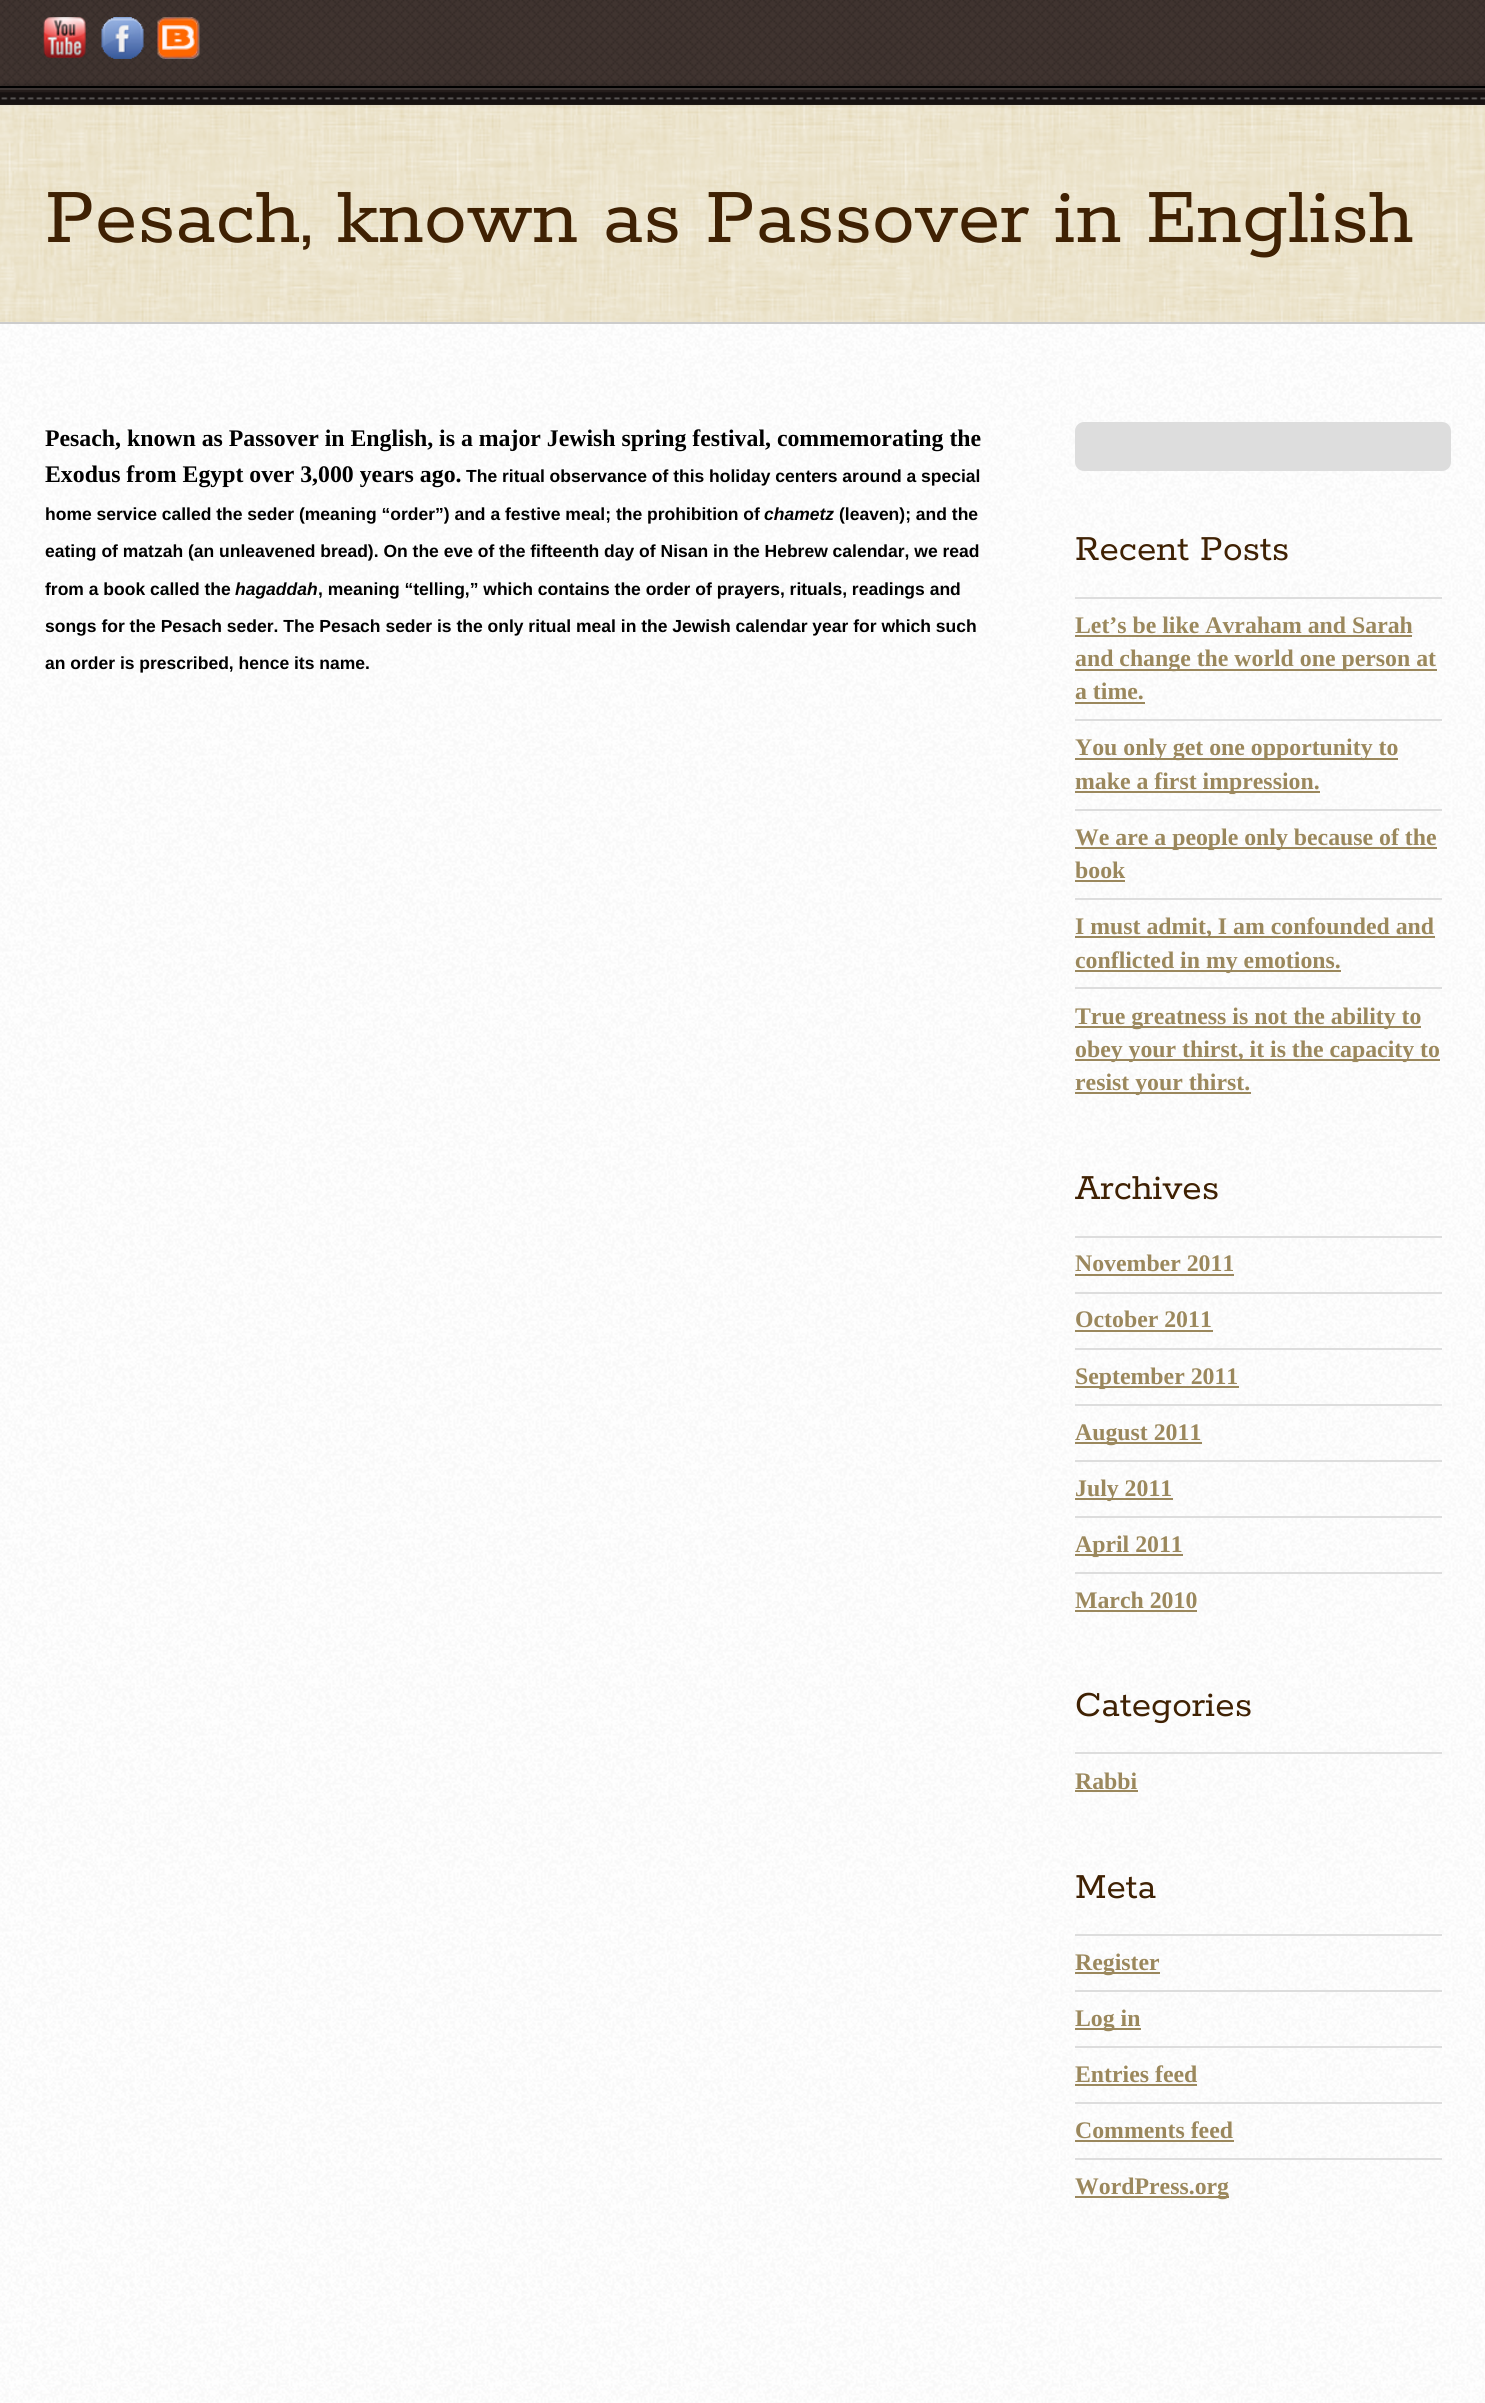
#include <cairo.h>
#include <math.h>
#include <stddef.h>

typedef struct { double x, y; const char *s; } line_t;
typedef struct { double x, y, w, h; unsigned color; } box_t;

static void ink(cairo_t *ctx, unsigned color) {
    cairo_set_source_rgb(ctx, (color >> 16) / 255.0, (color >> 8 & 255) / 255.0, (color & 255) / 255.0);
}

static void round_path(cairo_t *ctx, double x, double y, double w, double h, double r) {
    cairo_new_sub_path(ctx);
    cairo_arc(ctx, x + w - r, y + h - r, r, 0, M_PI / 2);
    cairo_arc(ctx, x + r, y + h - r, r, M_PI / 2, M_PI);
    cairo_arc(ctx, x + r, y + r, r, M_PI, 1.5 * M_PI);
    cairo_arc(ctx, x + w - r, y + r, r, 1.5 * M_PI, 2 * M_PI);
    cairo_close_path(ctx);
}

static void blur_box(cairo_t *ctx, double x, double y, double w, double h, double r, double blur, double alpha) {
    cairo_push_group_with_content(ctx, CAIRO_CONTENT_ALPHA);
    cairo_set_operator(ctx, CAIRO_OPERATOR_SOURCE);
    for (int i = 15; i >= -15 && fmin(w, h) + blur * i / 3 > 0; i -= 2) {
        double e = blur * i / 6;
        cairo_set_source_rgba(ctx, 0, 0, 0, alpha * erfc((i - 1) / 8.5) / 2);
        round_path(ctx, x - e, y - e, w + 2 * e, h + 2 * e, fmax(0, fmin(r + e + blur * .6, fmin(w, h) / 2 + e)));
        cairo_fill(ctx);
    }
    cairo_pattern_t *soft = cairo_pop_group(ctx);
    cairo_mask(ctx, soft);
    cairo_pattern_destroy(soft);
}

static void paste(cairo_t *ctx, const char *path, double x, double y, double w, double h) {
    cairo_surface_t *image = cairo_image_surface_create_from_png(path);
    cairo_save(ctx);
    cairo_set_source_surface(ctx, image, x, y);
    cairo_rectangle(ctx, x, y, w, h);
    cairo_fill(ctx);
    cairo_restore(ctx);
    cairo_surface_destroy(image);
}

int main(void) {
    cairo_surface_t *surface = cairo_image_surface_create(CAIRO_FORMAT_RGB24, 1485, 2403);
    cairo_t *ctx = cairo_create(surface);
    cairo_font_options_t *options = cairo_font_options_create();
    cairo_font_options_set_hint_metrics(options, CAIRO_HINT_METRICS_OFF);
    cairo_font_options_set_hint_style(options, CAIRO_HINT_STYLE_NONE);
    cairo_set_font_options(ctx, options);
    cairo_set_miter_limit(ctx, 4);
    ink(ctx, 0x403430);
    cairo_paint(ctx);
    paste(ctx, "media/1.png", 0, 0, 1485, 86);
    paste(ctx, "media/2.png", 43, 17, 43, 41);
    paste(ctx, "media/3.png", 101, 17, 43, 42);
    paste(ctx, "media/4.png", 157, 17, 43, 42);
    ink(ctx, 0xDED0A8);
    cairo_rectangle(ctx, 0, 105, 1485, 217);
    cairo_fill(ctx);
    paste(ctx, "media/7.png", 0, 105, 1485, 217);
    ink(ctx, 0x000000);
    blur_box(ctx, 0, 84, 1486, 19, 0, 2.5, 0.2);
    ink(ctx, 0x261E1C);
    cairo_rectangle(ctx, 0, 90, 1485, 15);
    cairo_fill(ctx);
    paste(ctx, "media/5.png", 0, 92, 1485, 13);
    {
        static const box_t items[] = {
            {0, 88, 1485, 2, 0x3C3533},
            {0, 86, 1485, 2, 0x000000},
            {0, 324, 1485, 2079, 0xFFFFFF},
        };
        for (size_t i = 0; i < sizeof items / sizeof *items; i++) {
            ink(ctx, items[i].color);
            cairo_rectangle(ctx, items[i].x, items[i].y, items[i].w, items[i].h);
            cairo_fill(ctx);
        }
    }
    paste(ctx, "media/6.png", 0, 324, 1485, 2079);
    ink(ctx, 0xCCCCCC);
    cairo_rectangle(ctx, 0, 322, 1485, 2);
    cairo_fill(ctx);
    cairo_select_font_face(ctx, "Rokkitt SemiBold", CAIRO_FONT_SLANT_NORMAL, CAIRO_FONT_WEIGHT_NORMAL);
    cairo_set_font_size(ctx, 85.7);
    ink(ctx, 0x3F2103);
    cairo_move_to(ctx, 45, 242);
    cairo_show_text(ctx, "Pesach, known as Passover in English");
    cairo_select_font_face(ctx, "Liberation Serif", CAIRO_FONT_SLANT_NORMAL, CAIRO_FONT_WEIGHT_BOLD);
    cairo_set_font_size(ctx, 23.8);
    ink(ctx, 0x000000);
    cairo_move_to(ctx, 45, 446);
    cairo_show_text(ctx, "Pesach, known as Passover in English, is a major Jewish spring festival, commemorating the");
    cairo_move_to(ctx, 45, 482);
    cairo_show_text(ctx, "Exodus from Egypt over 3,000 years ago.");
    cairo_select_font_face(ctx, "Liberation Sans", CAIRO_FONT_SLANT_NORMAL, CAIRO_FONT_WEIGHT_BOLD);
    cairo_set_font_size(ctx, 17.5);
    cairo_move_to(ctx, 466, 482);
    cairo_show_text(ctx, "The ritual observance of this holiday centers around a special");
    cairo_move_to(ctx, 45, 520);
    cairo_show_text(ctx, "home service called the seder (meaning “order”) and a festive meal; the prohibition of");
    cairo_select_font_face(ctx, "Liberation Sans", CAIRO_FONT_SLANT_ITALIC, CAIRO_FONT_WEIGHT_BOLD);
    cairo_move_to(ctx, 764, 520);
    cairo_show_text(ctx, "chametz");
    cairo_select_font_face(ctx, "Liberation Sans", CAIRO_FONT_SLANT_NORMAL, CAIRO_FONT_WEIGHT_BOLD);
    {
        static const line_t items[] = {
            {839, 520, "(leaven); and the"},
            {45, 557, "eating of matzah (an unleavened bread). On the eve of the fifteenth day of Nisan in the Hebrew calendar, we read"},
            {45, 595, "from a book called the"},
        };
        for (size_t i = 0; i < sizeof items / sizeof *items; i++) {
            cairo_move_to(ctx, items[i].x, items[i].y);
            cairo_show_text(ctx, items[i].s);
        }
    }
    cairo_select_font_face(ctx, "Liberation Sans", CAIRO_FONT_SLANT_ITALIC, CAIRO_FONT_WEIGHT_BOLD);
    cairo_move_to(ctx, 235, 595);
    cairo_show_text(ctx, "hagaddah");
    cairo_select_font_face(ctx, "Liberation Sans", CAIRO_FONT_SLANT_NORMAL, CAIRO_FONT_WEIGHT_BOLD);
    {
        static const line_t items[] = {
            {318, 595, ", meaning “telling,” which contains the order of prayers, rituals, readings and"},
            {45, 632, "songs for the Pesach seder. The Pesach seder is the only ritual meal in the Jewish calendar year for which such"},
            {45, 669, "an order is prescribed, hence its name."},
        };
        for (size_t i = 0; i < sizeof items / sizeof *items; i++) {
            cairo_move_to(ctx, items[i].x, items[i].y);
            cairo_show_text(ctx, items[i].s);
        }
    }
    ink(ctx, 0xDDDDDD);
    round_path(ctx, 1075, 422, 376, 49, 9);
    cairo_fill(ctx);
    cairo_select_font_face(ctx, "Rokkitt SemiBold", CAIRO_FONT_SLANT_NORMAL, CAIRO_FONT_WEIGHT_NORMAL);
    cairo_set_font_size(ctx, 39.25);
    ink(ctx, 0x3F2103);
    cairo_move_to(ctx, 1075, 560);
    cairo_show_text(ctx, "Recent Posts");
    ink(ctx, 0xDDDDDD);
    cairo_rectangle(ctx, 1075, 597, 367, 2);
    cairo_fill(ctx);
    cairo_select_font_face(ctx, "Liberation Serif", CAIRO_FONT_SLANT_NORMAL, CAIRO_FONT_WEIGHT_BOLD);
    cairo_set_font_size(ctx, 23.8);
    ink(ctx, 0x9B885D);
    cairo_move_to(ctx, 1075, 633);
    cairo_show_text(ctx, "Let’s be like Avraham and Sarah");
    cairo_rectangle(ctx, 1075, 635, 337, 2);
    cairo_fill(ctx);
    cairo_rectangle(ctx, 1075, 669, 362, 2);
    cairo_fill(ctx);
    cairo_move_to(ctx, 1075, 666);
    cairo_show_text(ctx, "and change the world one person at");
    cairo_move_to(ctx, 1075, 699);
    cairo_show_text(ctx, "a time.");
    {
        static const box_t items[] = {
            {1075, 702, 70, 2, 0x9B885D},
            {1075, 719, 367, 2, 0xDDDDDD},
            {1075, 758, 323, 2, 0x9B885D},
        };
        for (size_t i = 0; i < sizeof items / sizeof *items; i++) {
            ink(ctx, items[i].color);
            cairo_rectangle(ctx, items[i].x, items[i].y, items[i].w, items[i].h);
            cairo_fill(ctx);
        }
    }
    cairo_move_to(ctx, 1075, 755);
    cairo_show_text(ctx, "You only get one opportunity to");
    cairo_rectangle(ctx, 1075, 791, 245, 2);
    cairo_fill(ctx);
    cairo_move_to(ctx, 1075, 789);
    cairo_show_text(ctx, "make a first impression.");
    ink(ctx, 0xDDDDDD);
    cairo_rectangle(ctx, 1075, 809, 367, 2);
    cairo_fill(ctx);
    ink(ctx, 0x9B885D);
    cairo_rectangle(ctx, 1075, 847, 362, 2);
    cairo_fill(ctx);
    cairo_move_to(ctx, 1075, 845);
    cairo_show_text(ctx, "We are a people only because of the");
    cairo_move_to(ctx, 1075, 878);
    cairo_show_text(ctx, "book");
    {
        static const box_t items[] = {
            {1075, 880, 50, 2, 0x9B885D},
            {1075, 898, 367, 2, 0xDDDDDD},
            {1075, 936, 360, 2, 0x9B885D},
        };
        for (size_t i = 0; i < sizeof items / sizeof *items; i++) {
            ink(ctx, items[i].color);
            cairo_rectangle(ctx, items[i].x, items[i].y, items[i].w, items[i].h);
            cairo_fill(ctx);
        }
    }
    cairo_move_to(ctx, 1075, 934);
    cairo_show_text(ctx, "I must admit, I am confounded and");
    cairo_rectangle(ctx, 1075, 970, 266, 2);
    cairo_fill(ctx);
    cairo_move_to(ctx, 1075, 968);
    cairo_show_text(ctx, "conflicted in my emotions.");
    ink(ctx, 0xDDDDDD);
    cairo_rectangle(ctx, 1075, 987, 367, 2);
    cairo_fill(ctx);
    ink(ctx, 0x9B885D);
    cairo_rectangle(ctx, 1075, 1026, 346, 2);
    cairo_fill(ctx);
    cairo_move_to(ctx, 1075, 1024);
    cairo_show_text(ctx, "True greatness is not the ability to");
    cairo_rectangle(ctx, 1075, 1059, 365, 2);
    cairo_fill(ctx);
    cairo_move_to(ctx, 1075, 1057);
    cairo_show_text(ctx, "obey your thirst, it is the capacity to");
    cairo_rectangle(ctx, 1075, 1092, 176, 2);
    cairo_fill(ctx);
    cairo_move_to(ctx, 1075, 1090);
    cairo_show_text(ctx, "resist your thirst.");
    cairo_select_font_face(ctx, "Rokkitt SemiBold", CAIRO_FONT_SLANT_NORMAL, CAIRO_FONT_WEIGHT_NORMAL);
    cairo_set_font_size(ctx, 39.25);
    ink(ctx, 0x3F2103);
    cairo_move_to(ctx, 1075, 1199);
    cairo_show_text(ctx, "Archives");
    ink(ctx, 0xDDDDDD);
    cairo_rectangle(ctx, 1075, 1236, 367, 2);
    cairo_fill(ctx);
    cairo_select_font_face(ctx, "Liberation Serif", CAIRO_FONT_SLANT_NORMAL, CAIRO_FONT_WEIGHT_BOLD);
    cairo_set_font_size(ctx, 23.8);
    ink(ctx, 0x9B885D);
    cairo_move_to(ctx, 1075, 1271);
    cairo_show_text(ctx, "November 2011");
    cairo_rectangle(ctx, 1075, 1274, 159, 2);
    cairo_fill(ctx);
    ink(ctx, 0xDDDDDD);
    cairo_rectangle(ctx, 1075, 1292, 367, 2);
    cairo_fill(ctx);
    ink(ctx, 0x9B885D);
    cairo_move_to(ctx, 1075, 1327);
    cairo_show_text(ctx, "October 2011");
    {
        static const box_t items[] = {
            {1075, 1330, 138, 2, 0x9B885D},
            {1075, 1348, 367, 2, 0xDDDDDD},
            {1075, 1386, 164, 2, 0x9B885D},
        };
        for (size_t i = 0; i < sizeof items / sizeof *items; i++) {
            ink(ctx, items[i].color);
            cairo_rectangle(ctx, items[i].x, items[i].y, items[i].w, items[i].h);
            cairo_fill(ctx);
        }
    }
    cairo_move_to(ctx, 1075, 1384);
    cairo_show_text(ctx, "September 2011");
    ink(ctx, 0xDDDDDD);
    cairo_rectangle(ctx, 1075, 1404, 367, 2);
    cairo_fill(ctx);
    ink(ctx, 0x9B885D);
    cairo_rectangle(ctx, 1075, 1442, 127, 2);
    cairo_fill(ctx);
    cairo_move_to(ctx, 1075, 1440);
    cairo_show_text(ctx, "August 2011");
    ink(ctx, 0xDDDDDD);
    cairo_rectangle(ctx, 1075, 1460, 367, 2);
    cairo_fill(ctx);
    ink(ctx, 0x9B885D);
    cairo_rectangle(ctx, 1075, 1498, 98, 2);
    cairo_fill(ctx);
    cairo_move_to(ctx, 1075, 1496);
    cairo_show_text(ctx, "July 2011");
    ink(ctx, 0xDDDDDD);
    cairo_rectangle(ctx, 1075, 1516, 367, 2);
    cairo_fill(ctx);
    ink(ctx, 0x9B885D);
    cairo_rectangle(ctx, 1075, 1554, 108, 2);
    cairo_fill(ctx);
    cairo_move_to(ctx, 1075, 1552);
    cairo_show_text(ctx, "April 2011");
    ink(ctx, 0xDDDDDD);
    cairo_rectangle(ctx, 1075, 1572, 367, 2);
    cairo_fill(ctx);
    ink(ctx, 0x9B885D);
    cairo_move_to(ctx, 1075, 1608);
    cairo_show_text(ctx, "March 2010");
    cairo_rectangle(ctx, 1075, 1610, 122, 2);
    cairo_fill(ctx);
    cairo_select_font_face(ctx, "Rokkitt SemiBold", CAIRO_FONT_SLANT_NORMAL, CAIRO_FONT_WEIGHT_NORMAL);
    cairo_set_font_size(ctx, 39.25);
    ink(ctx, 0x3F2103);
    cairo_move_to(ctx, 1075, 1716);
    cairo_show_text(ctx, "Categories");
    ink(ctx, 0xDDDDDD);
    cairo_rectangle(ctx, 1075, 1752, 367, 2);
    cairo_fill(ctx);
    cairo_select_font_face(ctx, "Liberation Serif", CAIRO_FONT_SLANT_NORMAL, CAIRO_FONT_WEIGHT_BOLD);
    cairo_set_font_size(ctx, 23.8);
    ink(ctx, 0x9B885D);
    cairo_move_to(ctx, 1075, 1789);
    cairo_show_text(ctx, "Rabbi");
    cairo_rectangle(ctx, 1075, 1790, 63, 2);
    cairo_fill(ctx);
    cairo_select_font_face(ctx, "Rokkitt SemiBold", CAIRO_FONT_SLANT_NORMAL, CAIRO_FONT_WEIGHT_NORMAL);
    cairo_set_font_size(ctx, 39.25);
    ink(ctx, 0x3F2103);
    cairo_move_to(ctx, 1075, 1898);
    cairo_show_text(ctx, "Meta");
    ink(ctx, 0xDDDDDD);
    cairo_rectangle(ctx, 1075, 1934, 367, 2);
    cairo_fill(ctx);
    ink(ctx, 0x9B885D);
    cairo_rectangle(ctx, 1075, 1972, 85, 2);
    cairo_fill(ctx);
    cairo_select_font_face(ctx, "Liberation Serif", CAIRO_FONT_SLANT_NORMAL, CAIRO_FONT_WEIGHT_BOLD);
    cairo_set_font_size(ctx, 23.8);
    cairo_move_to(ctx, 1075, 1970);
    cairo_show_text(ctx, "Register");
    ink(ctx, 0xDDDDDD);
    cairo_rectangle(ctx, 1075, 1990, 367, 2);
    cairo_fill(ctx);
    ink(ctx, 0x9B885D);
    cairo_rectangle(ctx, 1075, 2028, 66, 2);
    cairo_fill(ctx);
    cairo_move_to(ctx, 1075, 2026);
    cairo_show_text(ctx, "Log in");
    ink(ctx, 0xDDDDDD);
    cairo_rectangle(ctx, 1075, 2046, 367, 2);
    cairo_fill(ctx);
    ink(ctx, 0x9B885D);
    cairo_move_to(ctx, 1075, 2082);
    cairo_show_text(ctx, "Entries feed");
    cairo_rectangle(ctx, 1075, 2084, 122, 2);
    cairo_fill(ctx);
    ink(ctx, 0xDDDDDD);
    cairo_rectangle(ctx, 1075, 2102, 367, 2);
    cairo_fill(ctx);
    ink(ctx, 0x9B885D);
    cairo_move_to(ctx, 1075, 2138);
    cairo_show_text(ctx, "Comments feed");
    {
        static const box_t items[] = {
            {1075, 2140, 159, 2, 0x9B885D},
            {1075, 2158, 367, 2, 0xDDDDDD},
            {1075, 2196, 154, 2, 0x9B885D},
        };
        for (size_t i = 0; i < sizeof items / sizeof *items; i++) {
            ink(ctx, items[i].color);
            cairo_rectangle(ctx, items[i].x, items[i].y, items[i].w, items[i].h);
            cairo_fill(ctx);
        }
    }
    cairo_move_to(ctx, 1075, 2194);
    cairo_show_text(ctx, "WordPress.org");
    cairo_surface_write_to_png(surface, "image.png");
    cairo_font_options_destroy(options);
    cairo_destroy(ctx);
    cairo_surface_destroy(surface);
    return 0;
}
